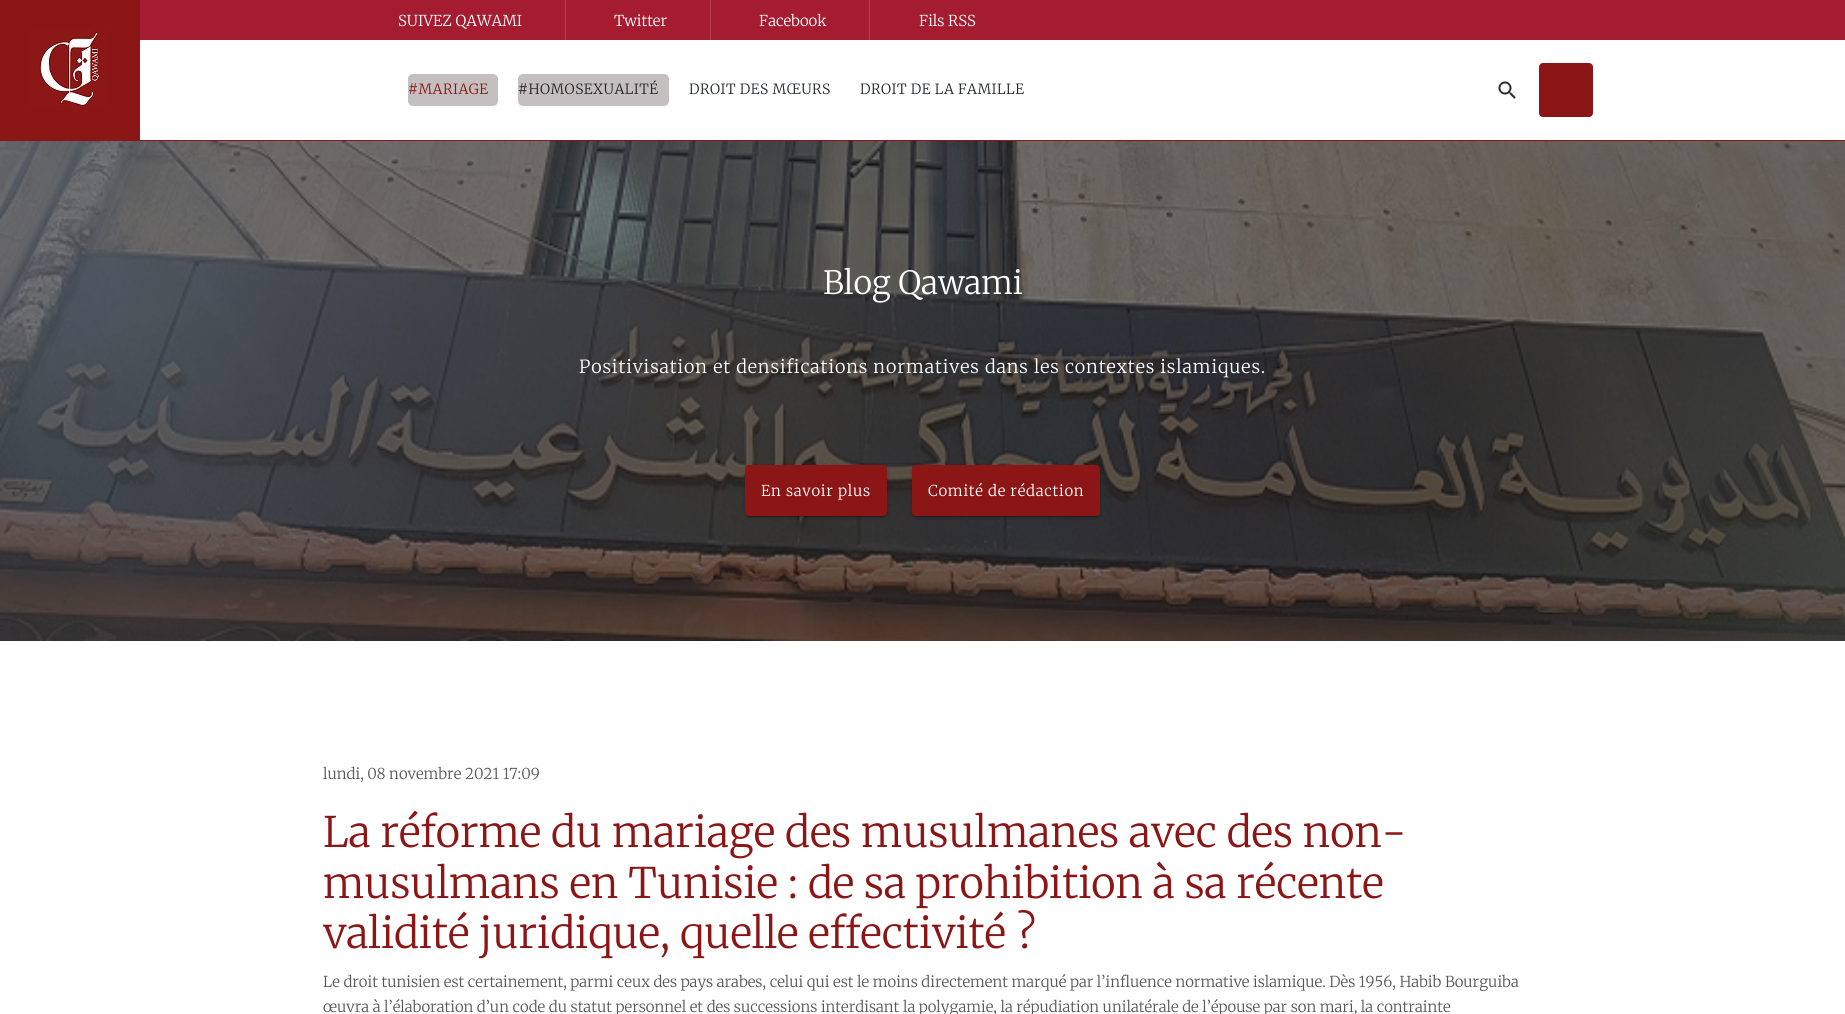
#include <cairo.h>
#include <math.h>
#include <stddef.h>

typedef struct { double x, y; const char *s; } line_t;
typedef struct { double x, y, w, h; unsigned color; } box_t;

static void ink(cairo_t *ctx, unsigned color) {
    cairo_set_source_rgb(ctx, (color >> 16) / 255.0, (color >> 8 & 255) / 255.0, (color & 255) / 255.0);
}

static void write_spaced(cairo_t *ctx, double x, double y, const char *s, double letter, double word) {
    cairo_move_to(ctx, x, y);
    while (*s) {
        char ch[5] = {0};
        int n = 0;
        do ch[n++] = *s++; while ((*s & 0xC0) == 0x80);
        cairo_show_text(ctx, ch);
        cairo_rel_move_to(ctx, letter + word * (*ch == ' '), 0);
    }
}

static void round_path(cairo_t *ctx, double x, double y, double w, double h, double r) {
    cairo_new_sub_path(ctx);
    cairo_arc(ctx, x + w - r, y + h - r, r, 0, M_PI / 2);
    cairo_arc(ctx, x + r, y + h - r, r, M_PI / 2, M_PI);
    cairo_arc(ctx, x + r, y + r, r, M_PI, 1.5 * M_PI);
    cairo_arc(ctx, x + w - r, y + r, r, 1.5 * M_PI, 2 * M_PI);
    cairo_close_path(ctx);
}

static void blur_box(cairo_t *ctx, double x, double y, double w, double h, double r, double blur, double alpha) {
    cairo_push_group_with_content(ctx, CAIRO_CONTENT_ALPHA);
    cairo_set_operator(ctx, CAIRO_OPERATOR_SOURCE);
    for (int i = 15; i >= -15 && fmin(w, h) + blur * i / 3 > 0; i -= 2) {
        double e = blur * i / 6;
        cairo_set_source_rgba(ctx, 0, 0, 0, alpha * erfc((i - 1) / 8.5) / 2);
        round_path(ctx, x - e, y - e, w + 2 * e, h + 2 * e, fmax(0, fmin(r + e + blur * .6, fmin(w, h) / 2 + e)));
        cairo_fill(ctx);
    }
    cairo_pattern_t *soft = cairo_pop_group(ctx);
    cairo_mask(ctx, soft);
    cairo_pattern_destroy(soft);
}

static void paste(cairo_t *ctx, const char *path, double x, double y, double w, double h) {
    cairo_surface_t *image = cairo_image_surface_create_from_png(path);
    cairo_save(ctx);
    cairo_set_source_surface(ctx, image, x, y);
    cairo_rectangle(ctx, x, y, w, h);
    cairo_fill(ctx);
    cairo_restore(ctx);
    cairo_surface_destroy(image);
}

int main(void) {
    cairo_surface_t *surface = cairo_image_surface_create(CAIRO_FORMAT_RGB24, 1845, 1014);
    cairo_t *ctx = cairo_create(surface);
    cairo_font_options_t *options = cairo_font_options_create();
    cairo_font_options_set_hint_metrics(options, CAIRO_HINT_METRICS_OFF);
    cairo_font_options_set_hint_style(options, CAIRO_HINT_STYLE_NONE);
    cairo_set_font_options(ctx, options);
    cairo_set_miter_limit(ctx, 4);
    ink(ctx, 0xFFFFFF);
    cairo_paint(ctx);
    ink(ctx, 0x8C1515);
    cairo_rectangle(ctx, 0, 140, 1845, 1);
    cairo_fill(ctx);
    cairo_rectangle(ctx, 0, 0, 140, 140);
    cairo_fill(ctx);
    paste(ctx, "media/1.png", 30, 30, 80, 80);
    {
        static const box_t items[] = {
            {140, 0, 1705, 40, 0xA51C30},
            {869, 0, 1, 40, 0xB33E4F},
            {710, 0, 1, 40, 0xB33E4F},
            {565, 0, 1, 40, 0xB33E4F},
        };
        for (size_t i = 0; i < sizeof items / sizeof *items; i++) {
            ink(ctx, items[i].color);
            cairo_rectangle(ctx, items[i].x, items[i].y, items[i].w, items[i].h);
            cairo_fill(ctx);
        }
    }
    cairo_select_font_face(ctx, "Merriweather Light", CAIRO_FONT_SLANT_NORMAL, CAIRO_FONT_WEIGHT_NORMAL);
    cairo_set_font_size(ctx, 15);
    ink(ctx, 0xFFFFFF);
    {
        static const line_t items[] = {
            {398, 26, "SUIVEZ QAWAMI"},
            {614, 26, "Twitter"},
            {759, 26, "Facebook"},
            {919, 26, "Fils RSS"},
        };
        for (size_t i = 0; i < sizeof items / sizeof *items; i++) {
            cairo_move_to(ctx, items[i].x, items[i].y);
            cairo_show_text(ctx, items[i].s);
        }
    }
    ink(ctx, 0xC4C0C0);
    round_path(ctx, 408, 74, 90, 32, 5);
    cairo_fill(ctx);
    cairo_set_font_size(ctx, 14);
    ink(ctx, 0x8C1515);
    write_spaced(ctx, 408, 94, "#MARIAGE", 0.5, 0);
    ink(ctx, 0xC4C0C0);
    round_path(ctx, 518, 74, 151, 32, 5);
    cairo_fill(ctx);
    ink(ctx, 0x212529);
    {
        static const line_t items[] = {
            {518, 94, "#HOMOSEXUALITÉ"},
            {689, 94, "DROIT DES MŒURS"},
            {860, 94, "DROIT DE LA FAMILLE"},
        };
        for (size_t i = 0; i < sizeof items / sizeof *items; i++) {
            write_spaced(ctx, items[i].x, items[i].y, items[i].s, 0.5, 0);
        }
    }
    paste(ctx, "media/2.png", 1498, 81, 18, 18);
    ink(ctx, 0x8C1515);
    round_path(ctx, 1539, 63, 54, 54, 4);
    cairo_fill(ctx);
    paste(ctx, "media/3.png", 0, 141, 1845, 500);
    cairo_set_font_size(ctx, 32);
    ink(ctx, 0xFFFFFF);
    cairo_move_to(ctx, 823, 294);
    cairo_show_text(ctx, "Blog Qawami");
    cairo_set_font_size(ctx, 18);
    write_spaced(ctx, 579, 373, "Positivisation et densifications normatives dans les contextes islamiques.", 0.9, 0);
    ink(ctx, 0x000000);
    blur_box(ctx, 745, 466, 142, 51, 4, 2.5, 0.12);
    blur_box(ctx, 745, 467, 142, 51, 4, 1, 0.14);
    blur_box(ctx, 747, 470, 138, 47, 2, 0.5, 0.2);
    ink(ctx, 0x8C1515);
    round_path(ctx, 745.5, 465.5, 141, 50, 3.5);
    cairo_fill_preserve(ctx);
    cairo_set_line_width(ctx, 1);
    cairo_stroke(ctx);
    cairo_set_font_size(ctx, 15);
    ink(ctx, 0xFFFFFF);
    write_spaced(ctx, 761, 496, "En savoir plus", 0.75, 0);
    ink(ctx, 0x000000);
    blur_box(ctx, 912, 466, 188, 51, 4, 2.5, 0.12);
    blur_box(ctx, 912, 467, 188, 51, 4, 1, 0.14);
    blur_box(ctx, 914, 470, 184, 47, 2, 0.5, 0.2);
    ink(ctx, 0x8C1515);
    round_path(ctx, 912.5, 465.5, 187, 50, 3.5);
    cairo_fill_preserve(ctx);
    cairo_stroke(ctx);
    ink(ctx, 0xFFFFFF);
    write_spaced(ctx, 928, 496, "Comité de rédaction", 0.75, 0);
    ink(ctx, 0x585858);
    cairo_move_to(ctx, 323, 779);
    cairo_show_text(ctx, "lundi, 08 novembre 2021 17:09");
    cairo_set_font_size(ctx, 42);
    ink(ctx, 0x8C1515);
    {
        static const line_t items[] = {
            {323, 847, "La réforme du mariage des musulmanes avec des non-"},
            {323, 898, "musulmans en Tunisie : de sa prohibition à sa récente"},
            {323, 948, "validité juridique, quelle effectivité ?"},
        };
        for (size_t i = 0; i < sizeof items / sizeof *items; i++) {
            cairo_move_to(ctx, items[i].x, items[i].y);
            cairo_show_text(ctx, items[i].s);
        }
    }
    cairo_set_font_size(ctx, 15);
    ink(ctx, 0x585858);
    cairo_move_to(ctx, 323, 987);
    cairo_show_text(ctx, "Le droit tunisien est certainement, parmi ceux des pays arabes, celui qui est le moins directement marqué par l’influence normative islamique. Dès 1956, Habib Bourguiba");
    cairo_move_to(ctx, 323, 1012);
    cairo_show_text(ctx, "œuvra à l’élaboration d’un code du statut personnel et des successions interdisant la polygamie, la répudiation unilatérale de l’épouse par son mari, la contrainte");
    cairo_surface_write_to_png(surface, "image.png");
    cairo_font_options_destroy(options);
    cairo_destroy(ctx);
    cairo_surface_destroy(surface);
    return 0;
}
